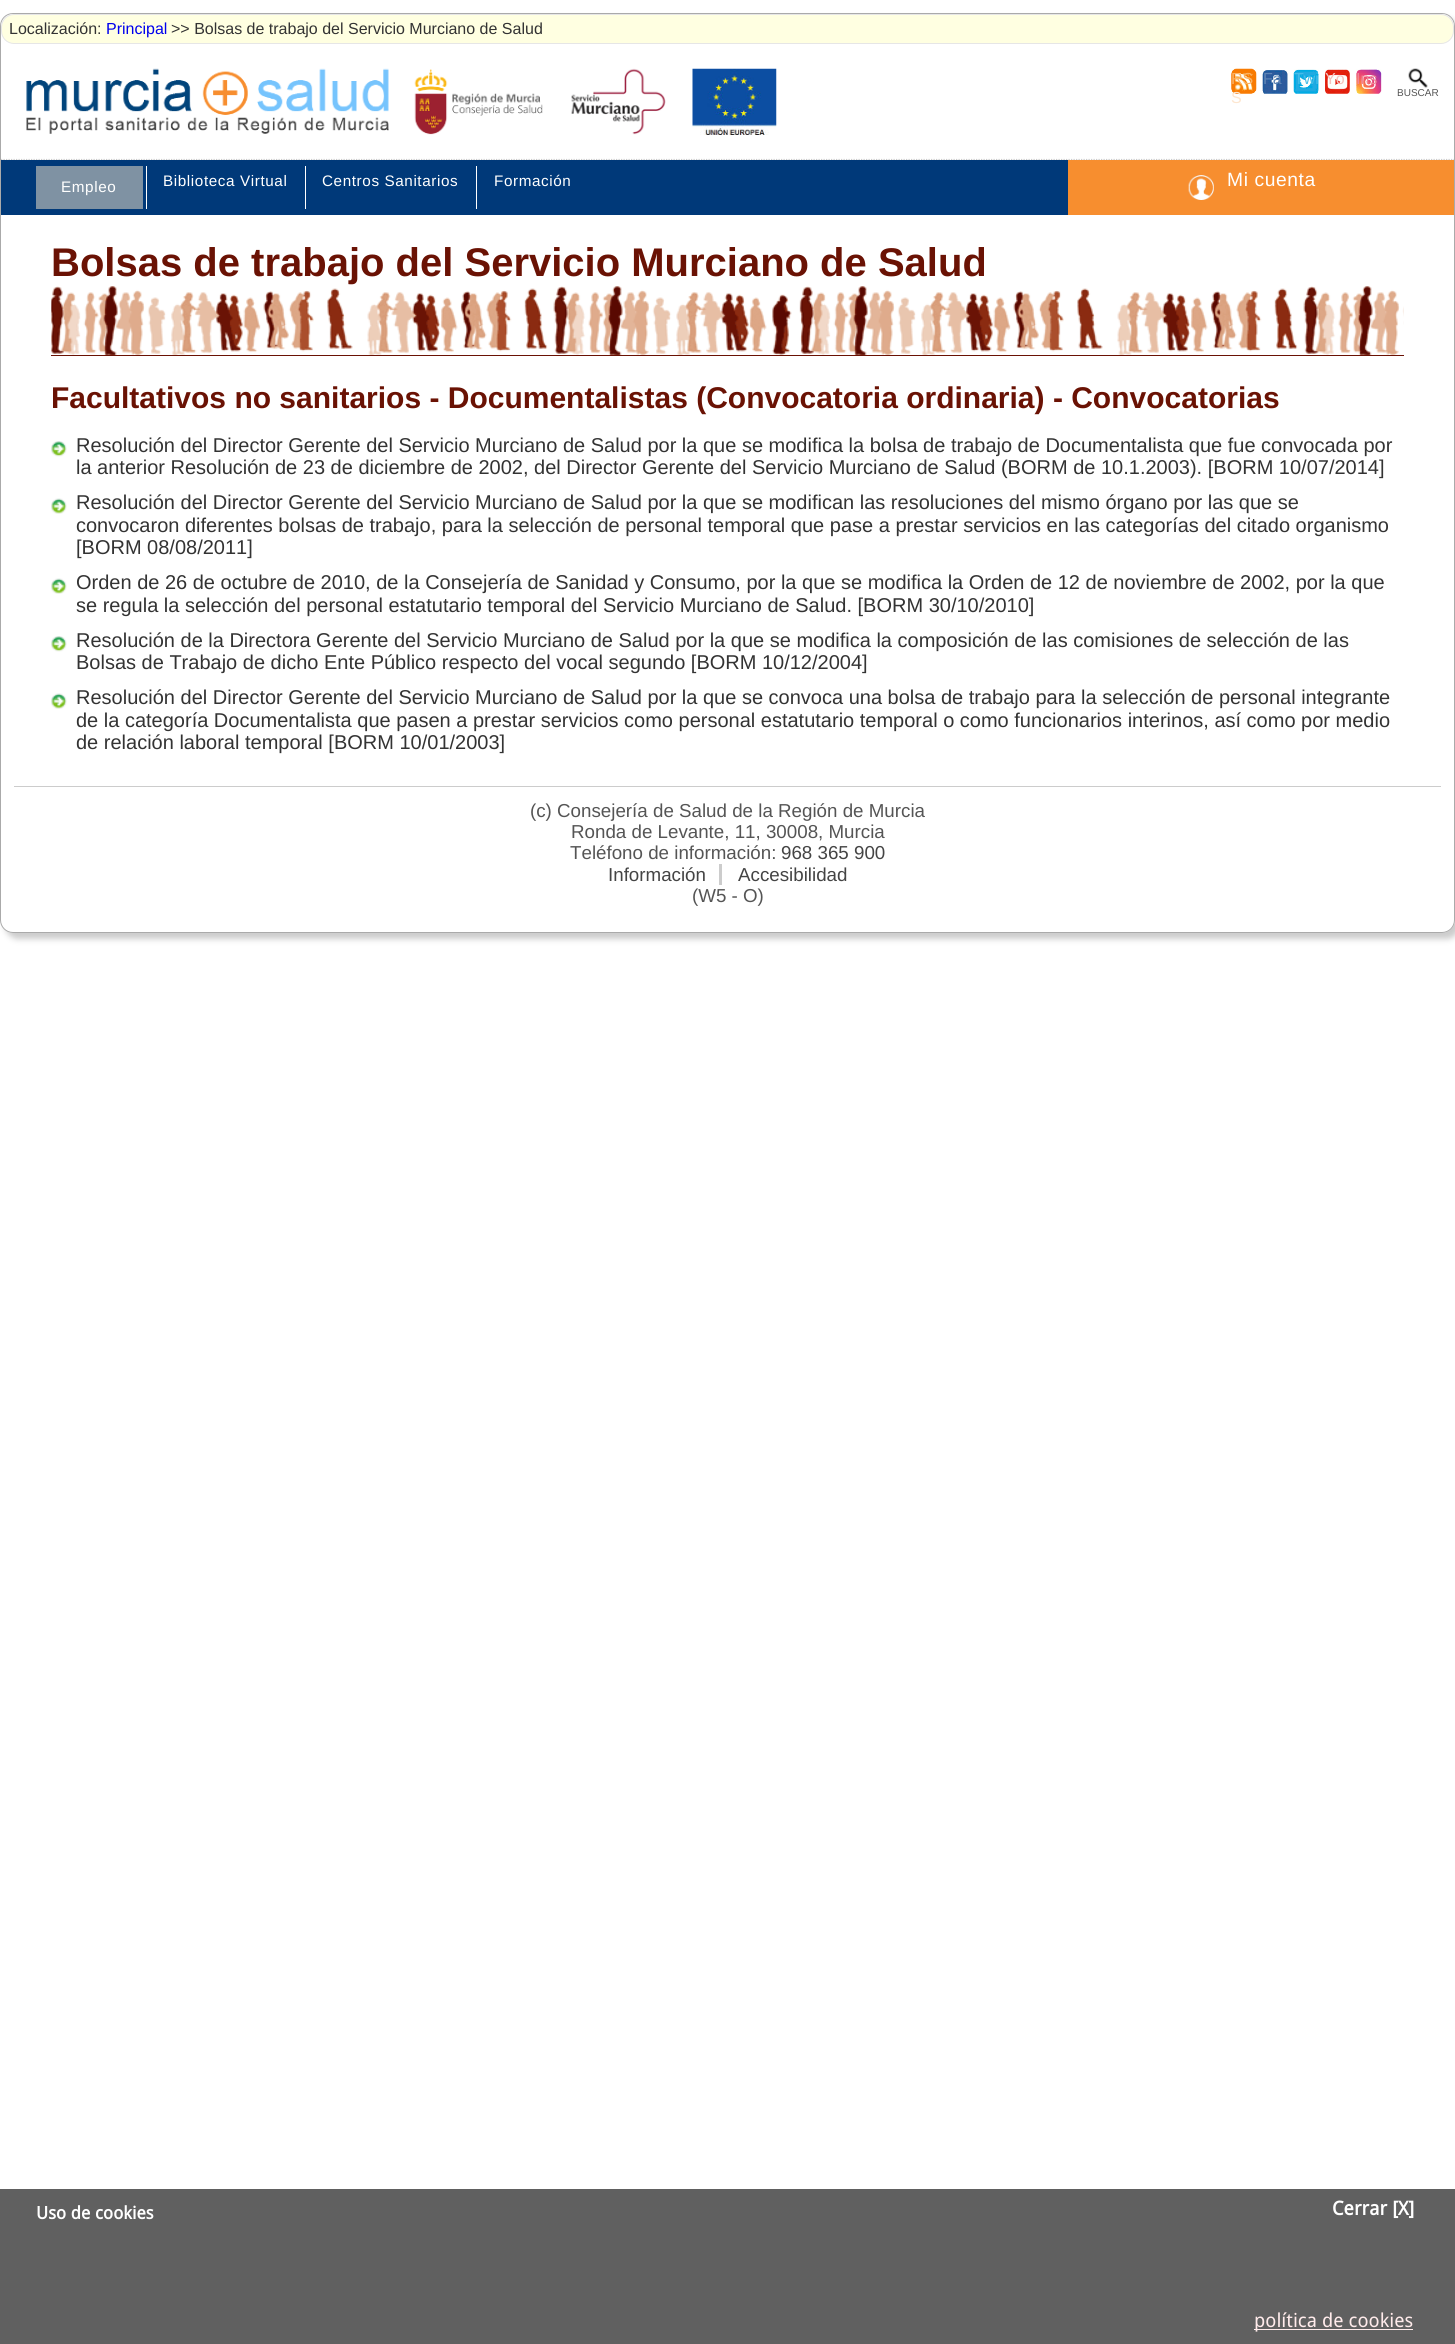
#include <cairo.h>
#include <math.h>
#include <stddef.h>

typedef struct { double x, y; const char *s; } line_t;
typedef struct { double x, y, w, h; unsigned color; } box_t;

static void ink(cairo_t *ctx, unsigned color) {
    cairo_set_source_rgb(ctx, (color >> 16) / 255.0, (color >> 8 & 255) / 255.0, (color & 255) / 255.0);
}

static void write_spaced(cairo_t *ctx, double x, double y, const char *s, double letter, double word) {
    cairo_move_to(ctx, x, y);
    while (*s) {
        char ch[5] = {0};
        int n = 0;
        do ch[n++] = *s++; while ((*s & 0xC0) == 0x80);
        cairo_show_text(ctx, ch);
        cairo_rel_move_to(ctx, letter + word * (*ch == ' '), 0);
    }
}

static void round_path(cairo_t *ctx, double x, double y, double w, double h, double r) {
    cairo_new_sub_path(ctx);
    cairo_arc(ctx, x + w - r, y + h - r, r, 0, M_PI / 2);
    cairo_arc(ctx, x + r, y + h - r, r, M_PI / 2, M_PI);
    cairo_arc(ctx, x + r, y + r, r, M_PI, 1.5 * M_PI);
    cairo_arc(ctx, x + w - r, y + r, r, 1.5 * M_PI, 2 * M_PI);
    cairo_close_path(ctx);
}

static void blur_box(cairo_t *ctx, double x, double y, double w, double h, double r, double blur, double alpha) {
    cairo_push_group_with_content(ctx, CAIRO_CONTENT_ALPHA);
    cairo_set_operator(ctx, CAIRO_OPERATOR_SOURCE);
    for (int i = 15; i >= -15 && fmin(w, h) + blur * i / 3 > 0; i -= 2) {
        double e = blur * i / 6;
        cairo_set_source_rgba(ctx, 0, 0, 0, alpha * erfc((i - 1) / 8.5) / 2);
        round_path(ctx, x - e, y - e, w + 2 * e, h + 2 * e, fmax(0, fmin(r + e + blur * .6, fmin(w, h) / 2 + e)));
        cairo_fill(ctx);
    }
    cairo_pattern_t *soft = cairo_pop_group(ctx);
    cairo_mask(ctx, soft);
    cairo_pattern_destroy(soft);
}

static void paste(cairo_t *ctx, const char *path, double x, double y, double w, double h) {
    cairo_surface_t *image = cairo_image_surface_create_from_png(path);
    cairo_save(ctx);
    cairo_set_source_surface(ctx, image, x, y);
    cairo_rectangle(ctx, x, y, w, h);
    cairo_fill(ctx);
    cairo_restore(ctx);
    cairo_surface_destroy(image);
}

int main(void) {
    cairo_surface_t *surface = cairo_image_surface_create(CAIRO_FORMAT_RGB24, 1455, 2344);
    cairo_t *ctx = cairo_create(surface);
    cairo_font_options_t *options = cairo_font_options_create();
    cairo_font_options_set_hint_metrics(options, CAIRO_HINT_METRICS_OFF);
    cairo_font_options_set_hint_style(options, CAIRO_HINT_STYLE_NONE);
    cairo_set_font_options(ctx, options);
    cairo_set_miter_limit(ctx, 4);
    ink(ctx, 0xFFFFFF);
    cairo_paint(ctx);
    cairo_save(ctx);
    cairo_set_fill_rule(ctx, CAIRO_FILL_RULE_EVEN_ODD);
    cairo_new_path(ctx);
    cairo_move_to(ctx, 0, 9);
    cairo_line_to(ctx, 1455, 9);
    cairo_line_to(ctx, 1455, 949);
    cairo_line_to(ctx, 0, 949);
    cairo_close_path(ctx);
    cairo_move_to(ctx, 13, 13);
    cairo_line_to(ctx, 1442, 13);
    cairo_curve_to(ctx, 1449, 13, 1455, 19, 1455, 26);
    cairo_line_to(ctx, 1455, 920);
    cairo_curve_to(ctx, 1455, 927, 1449, 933, 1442, 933);
    cairo_line_to(ctx, 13, 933);
    cairo_curve_to(ctx, 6, 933, 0, 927, 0, 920);
    cairo_line_to(ctx, 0, 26);
    cairo_curve_to(ctx, 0, 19, 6, 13, 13, 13);
    cairo_close_path(ctx);
    cairo_clip(ctx);
    ink(ctx, 0xCCCCCC);
    blur_box(ctx, 5, 19, 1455, 920, 13, 3, 1);
    cairo_restore(ctx);
    round_path(ctx, 0.5, 13.5, 1454, 919, 12.5);
    ink(ctx, 0xAAAAAA);
    cairo_set_line_width(ctx, 1);
    cairo_stroke(ctx);
    ink(ctx, 0xFFFFE1);
    round_path(ctx, 1.5, 14.5, 1452, 29, 12.5);
    cairo_fill_preserve(ctx);
    ink(ctx, 0xE6E6E6);
    cairo_stroke(ctx);
    cairo_select_font_face(ctx, "Liberation Sans", CAIRO_FONT_SLANT_NORMAL, CAIRO_FONT_WEIGHT_NORMAL);
    cairo_set_font_size(ctx, 16);
    ink(ctx, 0x333333);
    cairo_move_to(ctx, 9, 34);
    cairo_show_text(ctx, "Localización:");
    ink(ctx, 0x0000EE);
    cairo_move_to(ctx, 106, 34);
    cairo_show_text(ctx, "Principal");
    ink(ctx, 0x333333);
    cairo_move_to(ctx, 171, 34);
    cairo_show_text(ctx, ">> Bolsas de trabajo del Servicio Murciano de Salud");
    cairo_new_path(ctx);
    cairo_move_to(ctx, 1, 159.5);
    cairo_line_to(ctx, 1454, 159.5);
    ink(ctx, 0xCCCCCC);
    cairo_set_line_width(ctx, 1.2);
    cairo_set_dash(ctx, (double[]){1.25, 1.25}, 2, 0);
    cairo_stroke(ctx);
    paste(ctx, "media/1.png", 26, 68, 363, 66);
    paste(ctx, "media/2.png", 414, 69, 129, 66);
    paste(ctx, "media/3.png", 571, 68, 95, 67);
    paste(ctx, "media/4.png", 692, 68, 85, 67);
    paste(ctx, "media/5.png", 1231, 68, 26, 26);
    ink(ctx, 0xFAB264);
    cairo_move_to(ctx, 1231, 84);
    cairo_show_text(ctx, "RS");
    ink(ctx, 0xFDE6CF);
    cairo_move_to(ctx, 1231, 103);
    cairo_show_text(ctx, "S");
    paste(ctx, "media/6.png", 1262, 70, 26, 24);
    ink(ctx, 0x5E85B5);
    cairo_move_to(ctx, 1263, 84);
    cairo_show_text(ctx, "Fa");
    paste(ctx, "media/7.png", 1293, 69, 26, 25);
    ink(ctx, 0x47BDE8);
    cairo_move_to(ctx, 1294, 84);
    cairo_show_text(ctx, "Twi");
    paste(ctx, "media/8.png", 1325, 69, 25, 25);
    ink(ctx, 0xF6C3BD);
    cairo_move_to(ctx, 1325, 84);
    cairo_show_text(ctx, "Yo");
    paste(ctx, "media/9.png", 1356, 69, 26, 25);
    ink(ctx, 0xF08595);
    cairo_move_to(ctx, 1356, 84);
    cairo_show_text(ctx, "Ins");
    paste(ctx, "media/10.png", 1408, 68, 20, 20);
    cairo_set_font_size(ctx, 10);
    ink(ctx, 0x555555);
    cairo_move_to(ctx, 1397, 96);
    cairo_show_text(ctx, "BUSCAR");
    {
        static const box_t items[] = {
            {1, 160, 1067, 55, 0x003979},
            {146, 166, 1, 43, 0xFFFFFF},
            {36, 166, 107, 43, 0x7F92A3},
        };
        for (size_t i = 0; i < sizeof items / sizeof *items; i++) {
            ink(ctx, items[i].color);
            cairo_rectangle(ctx, items[i].x, items[i].y, items[i].w, items[i].h);
            cairo_fill(ctx);
        }
    }
    cairo_set_font_size(ctx, 15.25);
    ink(ctx, 0xFFFFFF);
    write_spaced(ctx, 61, 192, "Empleo", 0.6, 0);
    cairo_rectangle(ctx, 305, 166, 1, 43);
    cairo_fill(ctx);
    write_spaced(ctx, 163, 186, "Biblioteca Virtual", 0.6, 0);
    cairo_rectangle(ctx, 476, 166, 1, 43);
    cairo_fill(ctx);
    write_spaced(ctx, 322, 186, "Centros Sanitarios", 0.6, 0);
    write_spaced(ctx, 494, 186, "Formación", 0.6, 0);
    ink(ctx, 0xF78E2F);
    cairo_rectangle(ctx, 1068, 160, 386, 55);
    cairo_fill(ctx);
    paste(ctx, "media/11.png", 1188, 175, 26, 25);
    cairo_set_font_size(ctx, 19.25);
    ink(ctx, 0xFFFFFF);
    write_spaced(ctx, 1227, 186, "Mi cuenta", 0.6, 0);
    paste(ctx, "media/12.png", 51, 286, 1353, 69);
    ink(ctx, 0x6A1204);
    cairo_rectangle(ctx, 51, 355, 1353, 1);
    cairo_fill(ctx);
    cairo_select_font_face(ctx, "Liberation Sans", CAIRO_FONT_SLANT_NORMAL, CAIRO_FONT_WEIGHT_BOLD);
    cairo_set_font_size(ctx, 40);
    cairo_move_to(ctx, 51, 276);
    cairo_show_text(ctx, "Bolsas de trabajo del Servicio Murciano de Salud");
    cairo_set_font_size(ctx, 30);
    cairo_move_to(ctx, 51, 408);
    cairo_show_text(ctx, "Facultativos no sanitarios - Documentalistas (Convocatoria ordinaria) - Convocatorias");
    paste(ctx, "media/13.png", 51, 441, 16, 16);
    cairo_select_font_face(ctx, "Liberation Sans", CAIRO_FONT_SLANT_NORMAL, CAIRO_FONT_WEIGHT_NORMAL);
    cairo_set_font_size(ctx, 20);
    ink(ctx, 0x333333);
    cairo_move_to(ctx, 76, 452);
    cairo_show_text(ctx, "Resolución del Director Gerente del Servicio Murciano de Salud por la que se modifica la bolsa de trabajo de Documentalista que fue convocada por");
    cairo_move_to(ctx, 76, 474);
    cairo_show_text(ctx, "la anterior Resolución de 23 de diciembre de 2002, del Director Gerente del Servicio Murciano de Salud (BORM de 10.1.2003). [BORM 10/07/2014]");
    paste(ctx, "media/14.png", 51, 498, 16, 16);
    {
        static const line_t items[] = {
            {76, 509, "Resolución del Director Gerente del Servicio Murciano de Salud por la que se modifican las resoluciones del mismo órgano por las que se"},
            {76, 532, "convocaron diferentes bolsas de trabajo, para la selección de personal temporal que pase a prestar servicios en las categorías del citado organismo"},
            {76, 554, "[BORM 08/08/2011]"},
        };
        for (size_t i = 0; i < sizeof items / sizeof *items; i++) {
            cairo_move_to(ctx, items[i].x, items[i].y);
            cairo_show_text(ctx, items[i].s);
        }
    }
    paste(ctx, "media/15.png", 51, 578, 16, 16);
    cairo_move_to(ctx, 76, 589);
    cairo_show_text(ctx, "Orden de 26 de octubre de 2010, de la Consejería de Sanidad y Consumo, por la que se modifica la Orden de 12 de noviembre de 2002, por la que");
    cairo_move_to(ctx, 76, 612);
    cairo_show_text(ctx, "se regula la selección del personal estatutario temporal del Servicio Murciano de Salud. [BORM 30/10/2010]");
    paste(ctx, "media/13.png", 51, 636, 16, 16);
    cairo_move_to(ctx, 76, 647);
    cairo_show_text(ctx, "Resolución de la Directora Gerente del Servicio Murciano de Salud por la que se modifica la composición de las comisiones de selección de las");
    cairo_move_to(ctx, 76, 669);
    cairo_show_text(ctx, "Bolsas de Trabajo de dicho Ente Público respecto del vocal segundo [BORM 10/12/2004]");
    paste(ctx, "media/14.png", 51, 693, 16, 16);
    {
        static const line_t items[] = {
            {76, 704, "Resolución del Director Gerente del Servicio Murciano de Salud por la que se convoca una bolsa de trabajo para la selección de personal integrante"},
            {76, 727, "de la categoría Documentalista que pasen a prestar servicios como personal estatutario temporal o como funcionarios interinos, así como por medio"},
            {76, 749, "de relación laboral temporal [BORM 10/01/2003]"},
        };
        for (size_t i = 0; i < sizeof items / sizeof *items; i++) {
            cairo_move_to(ctx, items[i].x, items[i].y);
            cairo_show_text(ctx, items[i].s);
        }
    }
    ink(ctx, 0xCCCCCC);
    cairo_rectangle(ctx, 14, 786, 1427, 1);
    cairo_fill(ctx);
    cairo_set_font_size(ctx, 18.75);
    ink(ctx, 0x555555);
    {
        static const line_t items[] = {
            {530, 817, "(c) Consejería de Salud de la Región de Murcia"},
            {571, 838, "Ronda de Levante, 11, 30008, Murcia"},
            {570, 859, "Teléfono de información:"},
        };
        for (size_t i = 0; i < sizeof items / sizeof *items; i++) {
            cairo_move_to(ctx, items[i].x, items[i].y);
            cairo_show_text(ctx, items[i].s);
        }
    }
    ink(ctx, 0x444444);
    cairo_move_to(ctx, 781, 859);
    cairo_show_text(ctx, "968 365 900");
    ink(ctx, 0xCCCCCC);
    cairo_rectangle(ctx, 719, 864, 3, 21);
    cairo_fill(ctx);
    ink(ctx, 0x444444);
    cairo_move_to(ctx, 608, 881);
    cairo_show_text(ctx, "Información");
    cairo_move_to(ctx, 738, 881);
    cairo_show_text(ctx, "Accesibilidad");
    ink(ctx, 0x555555);
    cairo_move_to(ctx, 692, 902);
    cairo_show_text(ctx, "(W5 - O)");
    ink(ctx, 0x606060);
    cairo_rectangle(ctx, 0, 2189, 1455, 155);
    cairo_fill(ctx);
    cairo_select_font_face(ctx, "Droid Sans", CAIRO_FONT_SLANT_NORMAL, CAIRO_FONT_WEIGHT_BOLD);
    cairo_set_font_size(ctx, 17.5);
    ink(ctx, 0xFFFFFF);
    cairo_move_to(ctx, 36, 2219);
    cairo_show_text(ctx, "Uso de cookies");
    cairo_set_font_size(ctx, 19.25);
    cairo_move_to(ctx, 1332, 2215);
    cairo_show_text(ctx, "Cerrar [X]");
    ink(ctx, 0xFFEBEB);
    cairo_rectangle(ctx, 1254, 2329, 159, 1);
    cairo_fill(ctx);
    cairo_select_font_face(ctx, "Droid Sans", CAIRO_FONT_SLANT_NORMAL, CAIRO_FONT_WEIGHT_NORMAL);
    cairo_move_to(ctx, 1254, 2327);
    cairo_show_text(ctx, "política de cookies");
    cairo_surface_write_to_png(surface, "image.png");
    cairo_font_options_destroy(options);
    cairo_destroy(ctx);
    cairo_surface_destroy(surface);
    return 0;
}
